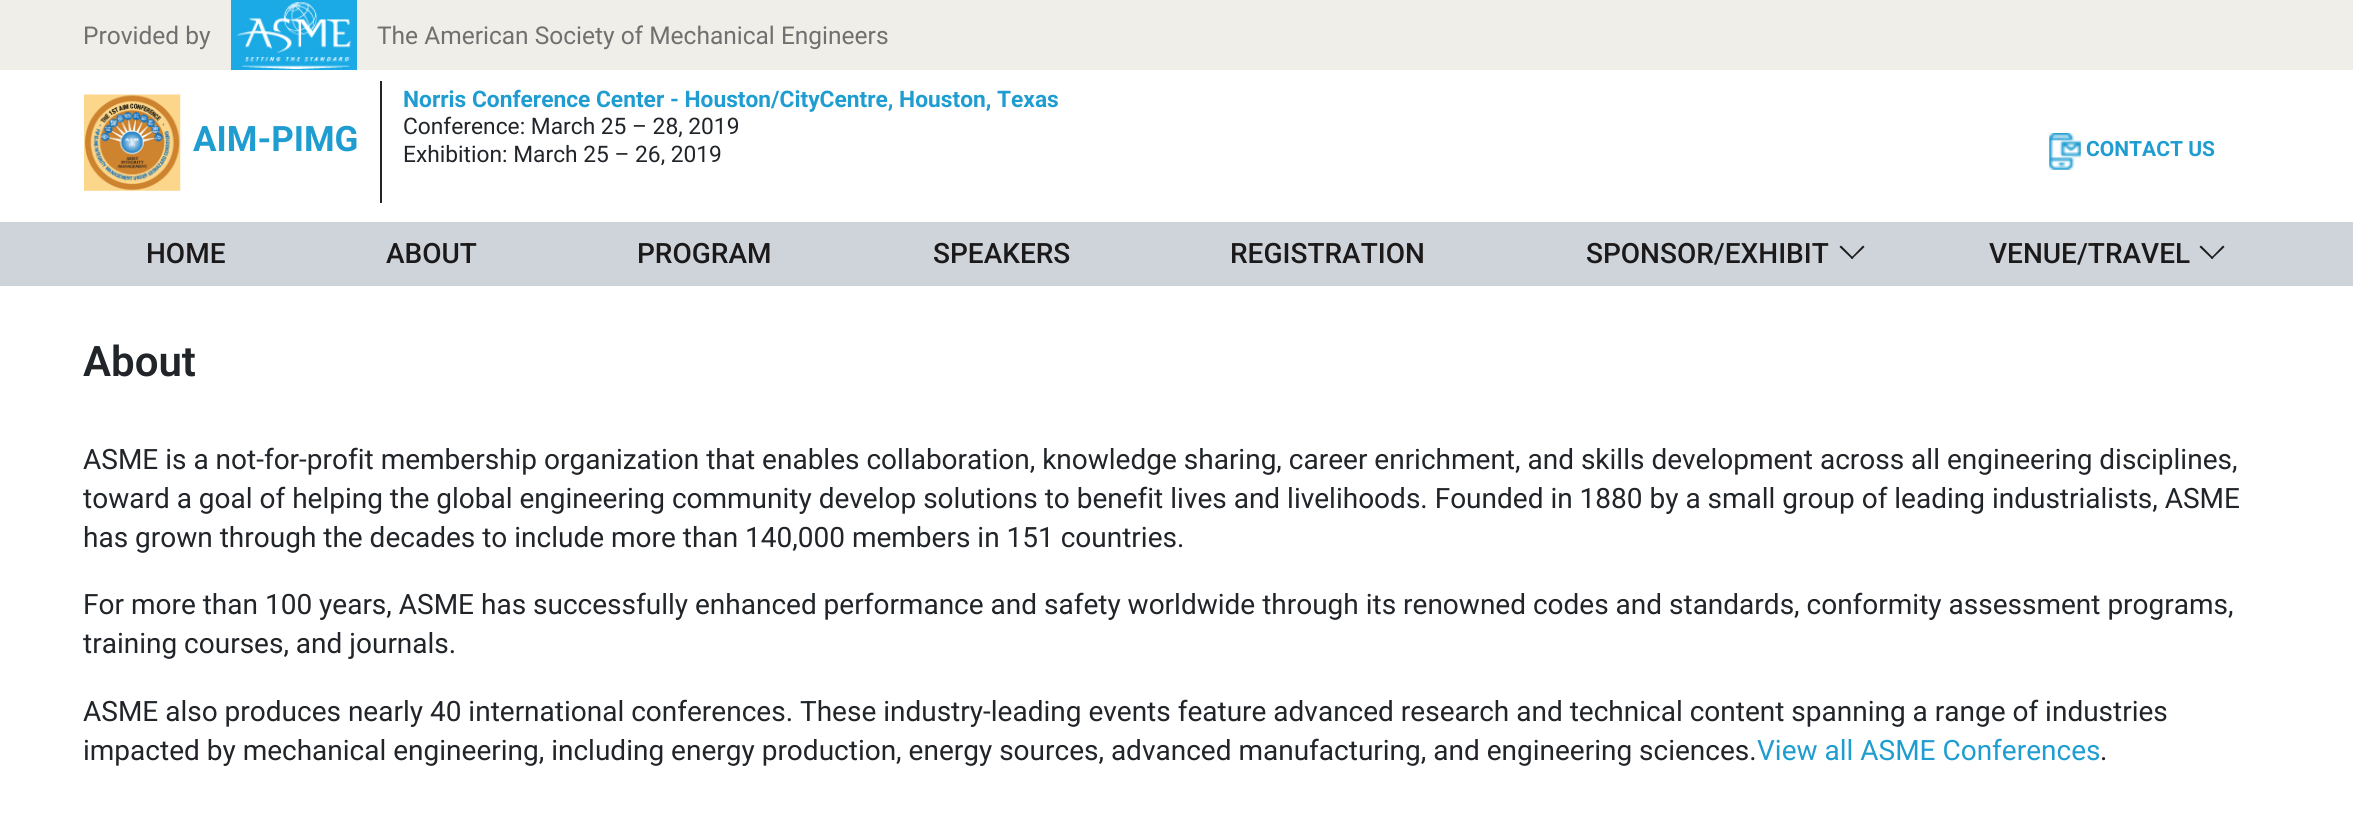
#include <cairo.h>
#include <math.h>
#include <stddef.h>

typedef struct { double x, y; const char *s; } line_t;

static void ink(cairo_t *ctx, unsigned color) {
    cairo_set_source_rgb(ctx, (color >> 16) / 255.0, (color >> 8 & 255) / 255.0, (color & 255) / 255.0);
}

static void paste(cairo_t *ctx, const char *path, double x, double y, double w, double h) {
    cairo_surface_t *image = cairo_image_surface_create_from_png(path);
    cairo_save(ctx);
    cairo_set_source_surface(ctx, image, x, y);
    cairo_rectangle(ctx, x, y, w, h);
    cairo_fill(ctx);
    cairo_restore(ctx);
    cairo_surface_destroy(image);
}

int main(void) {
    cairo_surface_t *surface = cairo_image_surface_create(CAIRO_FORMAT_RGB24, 2353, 821);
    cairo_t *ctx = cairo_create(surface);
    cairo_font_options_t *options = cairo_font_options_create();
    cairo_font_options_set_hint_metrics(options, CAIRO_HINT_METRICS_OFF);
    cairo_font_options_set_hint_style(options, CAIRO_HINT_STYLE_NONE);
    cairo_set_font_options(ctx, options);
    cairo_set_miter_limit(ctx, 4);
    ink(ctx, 0xFFFFFF);
    cairo_paint(ctx);
    ink(ctx, 0xF0EEE8);
    cairo_rectangle(ctx, 0, 0, 2353, 70);
    cairo_fill(ctx);
    cairo_select_font_face(ctx, "Roboto", CAIRO_FONT_SLANT_NORMAL, CAIRO_FONT_WEIGHT_NORMAL);
    cairo_set_font_size(ctx, 24.5);
    ink(ctx, 0x707070);
    cairo_move_to(ctx, 83, 44);
    cairo_show_text(ctx, "Provided by");
    paste(ctx, "media/1.png", 231, 0, 126, 70);
    cairo_move_to(ctx, 377, 44);
    cairo_show_text(ctx, "The American Society of Mechanical Engineers");
    ink(ctx, 0xCED4DA);
    cairo_rectangle(ctx, 0, 222, 2353, 64);
    cairo_fill(ctx);
    paste(ctx, "media/2.png", 84, 94, 97, 97);
    cairo_select_font_face(ctx, "Roboto", CAIRO_FONT_SLANT_NORMAL, CAIRO_FONT_WEIGHT_BOLD);
    cairo_set_font_size(ctx, 35);
    ink(ctx, 0x1F9DD1);
    cairo_move_to(ctx, 193, 151);
    cairo_show_text(ctx, "AIM-PIMG");
    ink(ctx, 0x212529);
    cairo_rectangle(ctx, 380, 81, 2, 122);
    cairo_fill(ctx);
    cairo_set_font_size(ctx, 22.75);
    ink(ctx, 0x1F9DD1);
    cairo_move_to(ctx, 403, 107);
    cairo_show_text(ctx, "Norris Conference Center - Houston/CityCentre, Houston, Texas");
    cairo_select_font_face(ctx, "Roboto", CAIRO_FONT_SLANT_NORMAL, CAIRO_FONT_WEIGHT_NORMAL);
    ink(ctx, 0x212529);
    cairo_move_to(ctx, 403, 134);
    cairo_show_text(ctx, "Conference: March 25 – 28, 2019");
    cairo_move_to(ctx, 403, 162);
    cairo_show_text(ctx, "Exhibition: March 25 – 26, 2019");
    paste(ctx, "media/3.png", 2049, 133, 32, 37);
    cairo_select_font_face(ctx, "Roboto", CAIRO_FONT_SLANT_NORMAL, CAIRO_FONT_WEIGHT_BOLD);
    cairo_set_font_size(ctx, 21);
    ink(ctx, 0x1F9DD1);
    cairo_move_to(ctx, 2086, 156);
    cairo_show_text(ctx, "CONTACT US");
    cairo_select_font_face(ctx, "Roboto Medium", CAIRO_FONT_SLANT_NORMAL, CAIRO_FONT_WEIGHT_NORMAL);
    cairo_set_font_size(ctx, 28);
    ink(ctx, 0x1B1919);
    {
        static const line_t items[] = {
            {146, 263, "HOME"},
            {386, 263, "ABOUT"},
            {637, 263, "PROGRAM"},
            {933, 263, "SPEAKERS"},
            {1230, 263, "REGISTRATION"},
            {1586, 263, "SPONSOR/EXHIBIT"},
        };
        for (size_t i = 0; i < sizeof items / sizeof *items; i++) {
            cairo_move_to(ctx, items[i].x, items[i].y);
            cairo_show_text(ctx, items[i].s);
        }
    }
    cairo_new_path(ctx);
    cairo_move_to(ctx, 1863, 245.5);
    cairo_line_to(ctx, 1864.5, 247);
    cairo_line_to(ctx, 1852, 259);
    cairo_line_to(ctx, 1851, 258);
    cairo_close_path(ctx);
    cairo_fill(ctx);
    cairo_new_path(ctx);
    cairo_move_to(ctx, 1841, 245.5);
    cairo_line_to(ctx, 1853.5, 258);
    cairo_line_to(ctx, 1852, 259);
    cairo_line_to(ctx, 1839.5, 247);
    cairo_close_path(ctx);
    cairo_fill(ctx);
    cairo_move_to(ctx, 1989, 263);
    cairo_show_text(ctx, "VENUE/TRAVEL");
    cairo_new_path(ctx);
    cairo_move_to(ctx, 2223, 245.5);
    cairo_line_to(ctx, 2224.5, 247);
    cairo_line_to(ctx, 2212, 259);
    cairo_line_to(ctx, 2211, 258);
    cairo_close_path(ctx);
    cairo_fill(ctx);
    cairo_new_path(ctx);
    cairo_move_to(ctx, 2201, 245.5);
    cairo_line_to(ctx, 2213.5, 258);
    cairo_line_to(ctx, 2212, 259);
    cairo_line_to(ctx, 2199.5, 247);
    cairo_close_path(ctx);
    cairo_fill(ctx);
    cairo_select_font_face(ctx, "Roboto SemiBold", CAIRO_FONT_SLANT_NORMAL, CAIRO_FONT_WEIGHT_NORMAL);
    cairo_set_font_size(ctx, 42);
    ink(ctx, 0x212529);
    cairo_move_to(ctx, 83, 376);
    cairo_show_text(ctx, "About");
    cairo_select_font_face(ctx, "Roboto", CAIRO_FONT_SLANT_NORMAL, CAIRO_FONT_WEIGHT_NORMAL);
    cairo_set_font_size(ctx, 28);
    {
        static const line_t items[] = {
            {83, 469, "ASME is a not-for-profit membership organization that enables collaboration, knowledge sharing, career enrichment, and skills development across all engineering disciplines,"},
            {83, 508, "toward a goal of helping the global engineering community develop solutions to benefit lives and livelihoods. Founded in 1880 by a small group of leading industrialists, ASME"},
            {83, 547, "has grown through the decades to include more than 140,000 members in 151 countries."},
            {83, 614, "For more than 100 years, ASME has successfully enhanced performance and safety worldwide through its renowned codes and standards, conformity assessment programs,"},
            {83, 653, "training courses, and journals."},
            {83, 721, "ASME also produces nearly 40 international conferences. These industry-leading events feature advanced research and technical content spanning a range of industries"},
            {83, 760, "impacted by mechanical engineering, including energy production, energy sources, advanced manufacturing, and engineering sciences."},
        };
        for (size_t i = 0; i < sizeof items / sizeof *items; i++) {
            cairo_move_to(ctx, items[i].x, items[i].y);
            cairo_show_text(ctx, items[i].s);
        }
    }
    ink(ctx, 0x1F9DD1);
    cairo_move_to(ctx, 1757, 760);
    cairo_show_text(ctx, "View all ASME Conferences");
    ink(ctx, 0x212529);
    cairo_move_to(ctx, 2100, 760);
    cairo_show_text(ctx, ".");
    cairo_surface_write_to_png(surface, "image.png");
    cairo_font_options_destroy(options);
    cairo_destroy(ctx);
    cairo_surface_destroy(surface);
    return 0;
}
